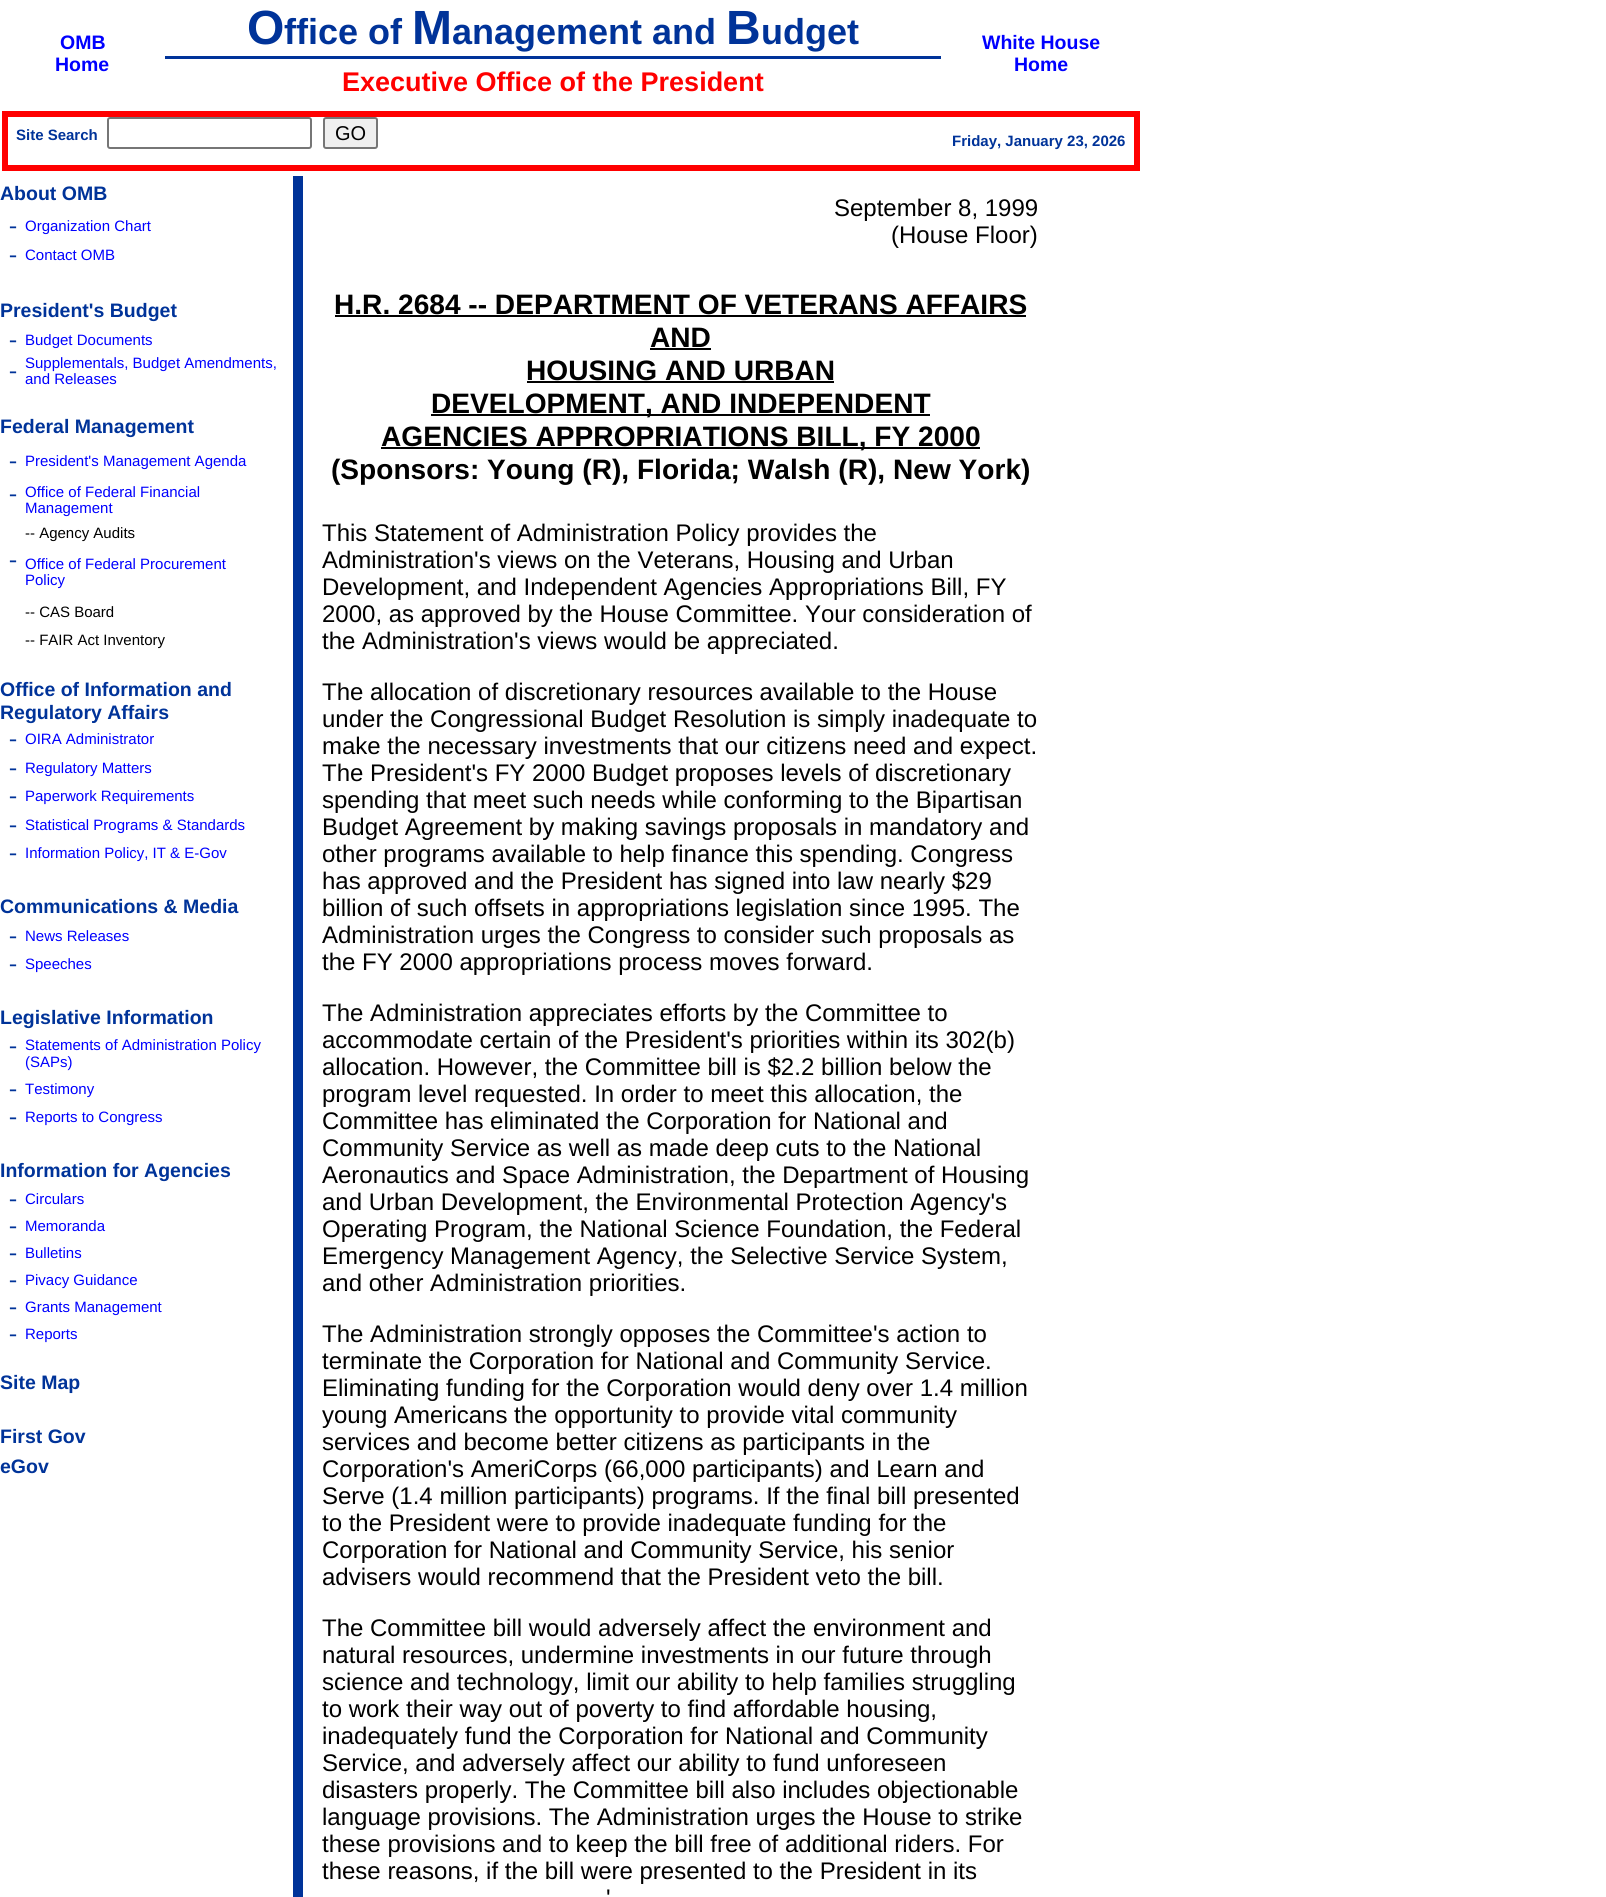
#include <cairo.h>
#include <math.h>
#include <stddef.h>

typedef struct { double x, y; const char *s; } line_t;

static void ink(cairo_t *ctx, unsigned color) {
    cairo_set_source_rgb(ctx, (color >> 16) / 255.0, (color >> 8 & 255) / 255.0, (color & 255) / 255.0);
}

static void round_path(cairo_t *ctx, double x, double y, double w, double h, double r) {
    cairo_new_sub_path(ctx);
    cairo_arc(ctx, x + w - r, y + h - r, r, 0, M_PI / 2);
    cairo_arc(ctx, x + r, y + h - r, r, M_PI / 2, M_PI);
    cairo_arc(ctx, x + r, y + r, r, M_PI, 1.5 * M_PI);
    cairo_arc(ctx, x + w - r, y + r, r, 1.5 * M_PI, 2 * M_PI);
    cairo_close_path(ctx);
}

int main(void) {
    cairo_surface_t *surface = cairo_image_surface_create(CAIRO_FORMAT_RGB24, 1606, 1897);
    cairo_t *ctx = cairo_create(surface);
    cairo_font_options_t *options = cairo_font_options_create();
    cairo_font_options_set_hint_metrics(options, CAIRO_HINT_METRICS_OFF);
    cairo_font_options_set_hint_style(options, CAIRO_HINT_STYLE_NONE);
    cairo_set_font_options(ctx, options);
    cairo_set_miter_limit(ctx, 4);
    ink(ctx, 0xFFFFFF);
    cairo_paint(ctx);
    cairo_select_font_face(ctx, "Liberation Sans", CAIRO_FONT_SLANT_NORMAL, CAIRO_FONT_WEIGHT_BOLD);
    cairo_set_font_size(ctx, 19.5);
    ink(ctx, 0x0000FF);
    cairo_move_to(ctx, 60, 49);
    cairo_show_text(ctx, "OMB");
    cairo_move_to(ctx, 55, 71);
    cairo_show_text(ctx, "Home");
    cairo_set_font_size(ctx, 48);
    ink(ctx, 0x003399);
    cairo_move_to(ctx, 247, 44);
    cairo_show_text(ctx, "O");
    cairo_set_font_size(ctx, 36);
    cairo_move_to(ctx, 284, 44);
    cairo_show_text(ctx, "ffice of");
    cairo_set_font_size(ctx, 48);
    cairo_move_to(ctx, 412, 44);
    cairo_show_text(ctx, "M");
    cairo_set_font_size(ctx, 36);
    cairo_move_to(ctx, 452, 44);
    cairo_show_text(ctx, "anagement and");
    cairo_set_font_size(ctx, 48);
    cairo_move_to(ctx, 726, 44);
    cairo_show_text(ctx, "B");
    cairo_set_font_size(ctx, 36);
    cairo_move_to(ctx, 761, 44);
    cairo_show_text(ctx, "udget");
    cairo_set_font_size(ctx, 19.5);
    ink(ctx, 0x0000FF);
    cairo_move_to(ctx, 982, 49);
    cairo_show_text(ctx, "White House");
    cairo_move_to(ctx, 1014, 71);
    cairo_show_text(ctx, "Home");
    ink(ctx, 0x003399);
    cairo_rectangle(ctx, 165, 56, 776, 3);
    cairo_fill(ctx);
    cairo_set_font_size(ctx, 27);
    ink(ctx, 0xFF0000);
    cairo_move_to(ctx, 342, 91);
    cairo_show_text(ctx, "Executive Office of the President");
    cairo_rectangle(ctx, 2, 111, 1138, 60);
    cairo_fill(ctx);
    ink(ctx, 0xFFFFFF);
    cairo_rectangle(ctx, 8, 117, 1126, 48);
    cairo_fill(ctx);
    cairo_set_font_size(ctx, 15);
    ink(ctx, 0x003399);
    cairo_move_to(ctx, 16, 140);
    cairo_show_text(ctx, "Site Search");
    round_path(ctx, 108, 118, 203, 30, 2);
    ink(ctx, 0x767676);
    cairo_stroke(ctx);
    ink(ctx, 0xEFEFEF);
    round_path(ctx, 324, 118, 53, 30, 2);
    cairo_fill_preserve(ctx);
    ink(ctx, 0x767676);
    cairo_stroke(ctx);
    cairo_select_font_face(ctx, "Liberation Sans", CAIRO_FONT_SLANT_NORMAL, CAIRO_FONT_WEIGHT_NORMAL);
    cairo_set_font_size(ctx, 20);
    ink(ctx, 0x000000);
    cairo_move_to(ctx, 335, 140);
    cairo_show_text(ctx, "GO");
    cairo_select_font_face(ctx, "Liberation Sans", CAIRO_FONT_SLANT_NORMAL, CAIRO_FONT_WEIGHT_BOLD);
    cairo_set_font_size(ctx, 15);
    ink(ctx, 0x003399);
    cairo_move_to(ctx, 952, 146);
    cairo_show_text(ctx, "Friday, January 23, 2026");
    cairo_set_font_size(ctx, 19.5);
    cairo_move_to(ctx, 0, 200);
    cairo_show_text(ctx, "About OMB");
    cairo_select_font_face(ctx, "Liberation Serif", CAIRO_FONT_SLANT_NORMAL, CAIRO_FONT_WEIGHT_NORMAL);
    cairo_set_font_size(ctx, 24);
    cairo_move_to(ctx, 9, 233);
    cairo_show_text(ctx, "-");
    cairo_select_font_face(ctx, "Liberation Sans", CAIRO_FONT_SLANT_NORMAL, CAIRO_FONT_WEIGHT_NORMAL);
    cairo_set_font_size(ctx, 15);
    ink(ctx, 0x0000FF);
    cairo_move_to(ctx, 25, 231);
    cairo_show_text(ctx, "Organization Chart");
    cairo_select_font_face(ctx, "Liberation Serif", CAIRO_FONT_SLANT_NORMAL, CAIRO_FONT_WEIGHT_NORMAL);
    cairo_set_font_size(ctx, 24);
    ink(ctx, 0x003399);
    cairo_move_to(ctx, 9, 262);
    cairo_show_text(ctx, "-");
    cairo_select_font_face(ctx, "Liberation Sans", CAIRO_FONT_SLANT_NORMAL, CAIRO_FONT_WEIGHT_NORMAL);
    cairo_set_font_size(ctx, 15);
    ink(ctx, 0x0000FF);
    cairo_move_to(ctx, 25, 260);
    cairo_show_text(ctx, "Contact OMB");
    cairo_select_font_face(ctx, "Liberation Sans", CAIRO_FONT_SLANT_NORMAL, CAIRO_FONT_WEIGHT_BOLD);
    cairo_set_font_size(ctx, 19.5);
    ink(ctx, 0x003399);
    cairo_move_to(ctx, 0, 317);
    cairo_show_text(ctx, "President's Budget");
    cairo_select_font_face(ctx, "Liberation Serif", CAIRO_FONT_SLANT_NORMAL, CAIRO_FONT_WEIGHT_NORMAL);
    cairo_set_font_size(ctx, 24);
    cairo_move_to(ctx, 9, 347);
    cairo_show_text(ctx, "-");
    cairo_select_font_face(ctx, "Liberation Sans", CAIRO_FONT_SLANT_NORMAL, CAIRO_FONT_WEIGHT_NORMAL);
    cairo_set_font_size(ctx, 15);
    ink(ctx, 0x0000FF);
    cairo_move_to(ctx, 25, 345);
    cairo_show_text(ctx, "Budget Documents");
    cairo_select_font_face(ctx, "Liberation Serif", CAIRO_FONT_SLANT_NORMAL, CAIRO_FONT_WEIGHT_NORMAL);
    cairo_set_font_size(ctx, 24);
    ink(ctx, 0x003399);
    cairo_move_to(ctx, 9, 378);
    cairo_show_text(ctx, "-");
    cairo_select_font_face(ctx, "Liberation Sans", CAIRO_FONT_SLANT_NORMAL, CAIRO_FONT_WEIGHT_NORMAL);
    cairo_set_font_size(ctx, 15);
    ink(ctx, 0x0000FF);
    cairo_move_to(ctx, 25, 368);
    cairo_show_text(ctx, "Supplementals, Budget Amendments,");
    cairo_move_to(ctx, 25, 384);
    cairo_show_text(ctx, "and Releases");
    cairo_select_font_face(ctx, "Liberation Sans", CAIRO_FONT_SLANT_NORMAL, CAIRO_FONT_WEIGHT_BOLD);
    cairo_set_font_size(ctx, 19.5);
    ink(ctx, 0x003399);
    cairo_move_to(ctx, 0, 433);
    cairo_show_text(ctx, "Federal Management");
    cairo_select_font_face(ctx, "Liberation Serif", CAIRO_FONT_SLANT_NORMAL, CAIRO_FONT_WEIGHT_NORMAL);
    cairo_set_font_size(ctx, 24);
    cairo_move_to(ctx, 9, 468);
    cairo_show_text(ctx, "-");
    cairo_select_font_face(ctx, "Liberation Sans", CAIRO_FONT_SLANT_NORMAL, CAIRO_FONT_WEIGHT_NORMAL);
    cairo_set_font_size(ctx, 15);
    ink(ctx, 0x0000FF);
    cairo_move_to(ctx, 25, 466);
    cairo_show_text(ctx, "President's Management Agenda");
    cairo_select_font_face(ctx, "Liberation Serif", CAIRO_FONT_SLANT_NORMAL, CAIRO_FONT_WEIGHT_NORMAL);
    cairo_set_font_size(ctx, 24);
    ink(ctx, 0x003399);
    cairo_move_to(ctx, 9, 501);
    cairo_show_text(ctx, "-");
    cairo_select_font_face(ctx, "Liberation Sans", CAIRO_FONT_SLANT_NORMAL, CAIRO_FONT_WEIGHT_NORMAL);
    cairo_set_font_size(ctx, 15);
    ink(ctx, 0x0000FF);
    cairo_move_to(ctx, 25, 497);
    cairo_show_text(ctx, "Office of Federal Financial");
    cairo_move_to(ctx, 25, 513);
    cairo_show_text(ctx, "Management");
    ink(ctx, 0x000000);
    cairo_move_to(ctx, 25, 538);
    cairo_show_text(ctx, "-- Agency Audits");
    cairo_select_font_face(ctx, "Liberation Serif", CAIRO_FONT_SLANT_NORMAL, CAIRO_FONT_WEIGHT_NORMAL);
    cairo_set_font_size(ctx, 24);
    ink(ctx, 0x003399);
    cairo_move_to(ctx, 9, 567);
    cairo_show_text(ctx, "-");
    cairo_select_font_face(ctx, "Liberation Sans", CAIRO_FONT_SLANT_NORMAL, CAIRO_FONT_WEIGHT_NORMAL);
    cairo_set_font_size(ctx, 15);
    ink(ctx, 0x0000FF);
    cairo_move_to(ctx, 25, 569);
    cairo_show_text(ctx, "Office of Federal Procurement");
    cairo_move_to(ctx, 25, 585);
    cairo_show_text(ctx, "Policy");
    ink(ctx, 0x000000);
    cairo_move_to(ctx, 25, 617);
    cairo_show_text(ctx, "-- CAS Board");
    cairo_move_to(ctx, 25, 645);
    cairo_show_text(ctx, "-- FAIR Act Inventory");
    cairo_select_font_face(ctx, "Liberation Sans", CAIRO_FONT_SLANT_NORMAL, CAIRO_FONT_WEIGHT_BOLD);
    cairo_set_font_size(ctx, 19.5);
    ink(ctx, 0x003399);
    cairo_move_to(ctx, 0, 696);
    cairo_show_text(ctx, "Office of Information and");
    cairo_move_to(ctx, 0, 719);
    cairo_show_text(ctx, "Regulatory Affairs");
    cairo_select_font_face(ctx, "Liberation Serif", CAIRO_FONT_SLANT_NORMAL, CAIRO_FONT_WEIGHT_NORMAL);
    cairo_set_font_size(ctx, 24);
    cairo_move_to(ctx, 9, 746);
    cairo_show_text(ctx, "-");
    cairo_select_font_face(ctx, "Liberation Sans", CAIRO_FONT_SLANT_NORMAL, CAIRO_FONT_WEIGHT_NORMAL);
    cairo_set_font_size(ctx, 15);
    ink(ctx, 0x0000FF);
    cairo_move_to(ctx, 25, 744);
    cairo_show_text(ctx, "OIRA Administrator");
    cairo_select_font_face(ctx, "Liberation Serif", CAIRO_FONT_SLANT_NORMAL, CAIRO_FONT_WEIGHT_NORMAL);
    cairo_set_font_size(ctx, 24);
    ink(ctx, 0x003399);
    cairo_move_to(ctx, 9, 775);
    cairo_show_text(ctx, "-");
    cairo_select_font_face(ctx, "Liberation Sans", CAIRO_FONT_SLANT_NORMAL, CAIRO_FONT_WEIGHT_NORMAL);
    cairo_set_font_size(ctx, 15);
    ink(ctx, 0x0000FF);
    cairo_move_to(ctx, 25, 773);
    cairo_show_text(ctx, "Regulatory Matters");
    cairo_select_font_face(ctx, "Liberation Serif", CAIRO_FONT_SLANT_NORMAL, CAIRO_FONT_WEIGHT_NORMAL);
    cairo_set_font_size(ctx, 24);
    ink(ctx, 0x003399);
    cairo_move_to(ctx, 9, 803);
    cairo_show_text(ctx, "-");
    cairo_select_font_face(ctx, "Liberation Sans", CAIRO_FONT_SLANT_NORMAL, CAIRO_FONT_WEIGHT_NORMAL);
    cairo_set_font_size(ctx, 15);
    ink(ctx, 0x0000FF);
    cairo_move_to(ctx, 25, 801);
    cairo_show_text(ctx, "Paperwork Requirements");
    cairo_select_font_face(ctx, "Liberation Serif", CAIRO_FONT_SLANT_NORMAL, CAIRO_FONT_WEIGHT_NORMAL);
    cairo_set_font_size(ctx, 24);
    ink(ctx, 0x003399);
    cairo_move_to(ctx, 9, 832);
    cairo_show_text(ctx, "-");
    cairo_select_font_face(ctx, "Liberation Sans", CAIRO_FONT_SLANT_NORMAL, CAIRO_FONT_WEIGHT_NORMAL);
    cairo_set_font_size(ctx, 15);
    ink(ctx, 0x0000FF);
    cairo_move_to(ctx, 25, 830);
    cairo_show_text(ctx, "Statistical Programs & Standards");
    cairo_select_font_face(ctx, "Liberation Serif", CAIRO_FONT_SLANT_NORMAL, CAIRO_FONT_WEIGHT_NORMAL);
    cairo_set_font_size(ctx, 24);
    ink(ctx, 0x003399);
    cairo_move_to(ctx, 9, 860);
    cairo_show_text(ctx, "-");
    cairo_select_font_face(ctx, "Liberation Sans", CAIRO_FONT_SLANT_NORMAL, CAIRO_FONT_WEIGHT_NORMAL);
    cairo_set_font_size(ctx, 15);
    ink(ctx, 0x0000FF);
    cairo_move_to(ctx, 25, 858);
    cairo_show_text(ctx, "Information Policy, IT & E-Gov");
    cairo_select_font_face(ctx, "Liberation Sans", CAIRO_FONT_SLANT_NORMAL, CAIRO_FONT_WEIGHT_BOLD);
    cairo_set_font_size(ctx, 19.5);
    ink(ctx, 0x003399);
    cairo_move_to(ctx, 0, 913);
    cairo_show_text(ctx, "Communications & Media");
    cairo_select_font_face(ctx, "Liberation Serif", CAIRO_FONT_SLANT_NORMAL, CAIRO_FONT_WEIGHT_NORMAL);
    cairo_set_font_size(ctx, 24);
    cairo_move_to(ctx, 9, 943);
    cairo_show_text(ctx, "-");
    cairo_select_font_face(ctx, "Liberation Sans", CAIRO_FONT_SLANT_NORMAL, CAIRO_FONT_WEIGHT_NORMAL);
    cairo_set_font_size(ctx, 15);
    ink(ctx, 0x0000FF);
    cairo_move_to(ctx, 25, 941);
    cairo_show_text(ctx, "News Releases");
    cairo_select_font_face(ctx, "Liberation Serif", CAIRO_FONT_SLANT_NORMAL, CAIRO_FONT_WEIGHT_NORMAL);
    cairo_set_font_size(ctx, 24);
    ink(ctx, 0x003399);
    cairo_move_to(ctx, 9, 971);
    cairo_show_text(ctx, "-");
    cairo_select_font_face(ctx, "Liberation Sans", CAIRO_FONT_SLANT_NORMAL, CAIRO_FONT_WEIGHT_NORMAL);
    cairo_set_font_size(ctx, 15);
    ink(ctx, 0x0000FF);
    cairo_move_to(ctx, 25, 969);
    cairo_show_text(ctx, "Speeches");
    cairo_select_font_face(ctx, "Liberation Sans", CAIRO_FONT_SLANT_NORMAL, CAIRO_FONT_WEIGHT_BOLD);
    cairo_set_font_size(ctx, 19.5);
    ink(ctx, 0x003399);
    cairo_move_to(ctx, 0, 1024);
    cairo_show_text(ctx, "Legislative Information");
    cairo_select_font_face(ctx, "Liberation Serif", CAIRO_FONT_SLANT_NORMAL, CAIRO_FONT_WEIGHT_NORMAL);
    cairo_set_font_size(ctx, 24);
    cairo_move_to(ctx, 9, 1053);
    cairo_show_text(ctx, "-");
    cairo_select_font_face(ctx, "Liberation Sans", CAIRO_FONT_SLANT_NORMAL, CAIRO_FONT_WEIGHT_NORMAL);
    cairo_set_font_size(ctx, 15);
    ink(ctx, 0x0000FF);
    cairo_move_to(ctx, 25, 1050);
    cairo_show_text(ctx, "Statements of Administration Policy");
    cairo_move_to(ctx, 25, 1067);
    cairo_show_text(ctx, "(SAPs)");
    cairo_select_font_face(ctx, "Liberation Serif", CAIRO_FONT_SLANT_NORMAL, CAIRO_FONT_WEIGHT_NORMAL);
    cairo_set_font_size(ctx, 24);
    ink(ctx, 0x003399);
    cairo_move_to(ctx, 9, 1096);
    cairo_show_text(ctx, "-");
    cairo_select_font_face(ctx, "Liberation Sans", CAIRO_FONT_SLANT_NORMAL, CAIRO_FONT_WEIGHT_NORMAL);
    cairo_set_font_size(ctx, 15);
    ink(ctx, 0x0000FF);
    cairo_move_to(ctx, 25, 1094);
    cairo_show_text(ctx, "Testimony");
    cairo_select_font_face(ctx, "Liberation Serif", CAIRO_FONT_SLANT_NORMAL, CAIRO_FONT_WEIGHT_NORMAL);
    cairo_set_font_size(ctx, 24);
    ink(ctx, 0x003399);
    cairo_move_to(ctx, 9, 1124);
    cairo_show_text(ctx, "-");
    cairo_select_font_face(ctx, "Liberation Sans", CAIRO_FONT_SLANT_NORMAL, CAIRO_FONT_WEIGHT_NORMAL);
    cairo_set_font_size(ctx, 15);
    ink(ctx, 0x0000FF);
    cairo_move_to(ctx, 25, 1122);
    cairo_show_text(ctx, "Reports to Congress");
    cairo_select_font_face(ctx, "Liberation Sans", CAIRO_FONT_SLANT_NORMAL, CAIRO_FONT_WEIGHT_BOLD);
    cairo_set_font_size(ctx, 19.5);
    ink(ctx, 0x003399);
    cairo_move_to(ctx, 0, 1177);
    cairo_show_text(ctx, "Information for Agencies");
    cairo_select_font_face(ctx, "Liberation Serif", CAIRO_FONT_SLANT_NORMAL, CAIRO_FONT_WEIGHT_NORMAL);
    cairo_set_font_size(ctx, 24);
    cairo_move_to(ctx, 9, 1206);
    cairo_show_text(ctx, "-");
    cairo_select_font_face(ctx, "Liberation Sans", CAIRO_FONT_SLANT_NORMAL, CAIRO_FONT_WEIGHT_NORMAL);
    cairo_set_font_size(ctx, 15);
    ink(ctx, 0x0000FF);
    cairo_move_to(ctx, 25, 1204);
    cairo_show_text(ctx, "Circulars");
    cairo_select_font_face(ctx, "Liberation Serif", CAIRO_FONT_SLANT_NORMAL, CAIRO_FONT_WEIGHT_NORMAL);
    cairo_set_font_size(ctx, 24);
    ink(ctx, 0x003399);
    cairo_move_to(ctx, 9, 1233);
    cairo_show_text(ctx, "-");
    cairo_select_font_face(ctx, "Liberation Sans", CAIRO_FONT_SLANT_NORMAL, CAIRO_FONT_WEIGHT_NORMAL);
    cairo_set_font_size(ctx, 15);
    ink(ctx, 0x0000FF);
    cairo_move_to(ctx, 25, 1231);
    cairo_show_text(ctx, "Memoranda");
    cairo_select_font_face(ctx, "Liberation Serif", CAIRO_FONT_SLANT_NORMAL, CAIRO_FONT_WEIGHT_NORMAL);
    cairo_set_font_size(ctx, 24);
    ink(ctx, 0x003399);
    cairo_move_to(ctx, 9, 1260);
    cairo_show_text(ctx, "-");
    cairo_select_font_face(ctx, "Liberation Sans", CAIRO_FONT_SLANT_NORMAL, CAIRO_FONT_WEIGHT_NORMAL);
    cairo_set_font_size(ctx, 15);
    ink(ctx, 0x0000FF);
    cairo_move_to(ctx, 25, 1258);
    cairo_show_text(ctx, "Bulletins");
    cairo_select_font_face(ctx, "Liberation Serif", CAIRO_FONT_SLANT_NORMAL, CAIRO_FONT_WEIGHT_NORMAL);
    cairo_set_font_size(ctx, 24);
    ink(ctx, 0x003399);
    cairo_move_to(ctx, 9, 1287);
    cairo_show_text(ctx, "-");
    cairo_select_font_face(ctx, "Liberation Sans", CAIRO_FONT_SLANT_NORMAL, CAIRO_FONT_WEIGHT_NORMAL);
    cairo_set_font_size(ctx, 15);
    ink(ctx, 0x0000FF);
    cairo_move_to(ctx, 25, 1285);
    cairo_show_text(ctx, "Pivacy Guidance");
    cairo_select_font_face(ctx, "Liberation Serif", CAIRO_FONT_SLANT_NORMAL, CAIRO_FONT_WEIGHT_NORMAL);
    cairo_set_font_size(ctx, 24);
    ink(ctx, 0x003399);
    cairo_move_to(ctx, 9, 1314);
    cairo_show_text(ctx, "-");
    cairo_select_font_face(ctx, "Liberation Sans", CAIRO_FONT_SLANT_NORMAL, CAIRO_FONT_WEIGHT_NORMAL);
    cairo_set_font_size(ctx, 15);
    ink(ctx, 0x0000FF);
    cairo_move_to(ctx, 25, 1312);
    cairo_show_text(ctx, "Grants Management");
    cairo_select_font_face(ctx, "Liberation Serif", CAIRO_FONT_SLANT_NORMAL, CAIRO_FONT_WEIGHT_NORMAL);
    cairo_set_font_size(ctx, 24);
    ink(ctx, 0x003399);
    cairo_move_to(ctx, 9, 1341);
    cairo_show_text(ctx, "-");
    cairo_select_font_face(ctx, "Liberation Sans", CAIRO_FONT_SLANT_NORMAL, CAIRO_FONT_WEIGHT_NORMAL);
    cairo_set_font_size(ctx, 15);
    ink(ctx, 0x0000FF);
    cairo_move_to(ctx, 25, 1339);
    cairo_show_text(ctx, "Reports");
    cairo_select_font_face(ctx, "Liberation Sans", CAIRO_FONT_SLANT_NORMAL, CAIRO_FONT_WEIGHT_BOLD);
    cairo_set_font_size(ctx, 19.5);
    ink(ctx, 0x003399);
    {
        static const line_t items[] = {
            {0, 1389, "Site Map"},
            {0, 1443, "First Gov"},
            {0, 1473, "eGov"},
        };
        for (size_t i = 0; i < sizeof items / sizeof *items; i++) {
            cairo_move_to(ctx, items[i].x, items[i].y);
            cairo_show_text(ctx, items[i].s);
        }
    }
    cairo_rectangle(ctx, 293, 176, 10, 1721);
    cairo_fill(ctx);
    cairo_select_font_face(ctx, "Liberation Sans", CAIRO_FONT_SLANT_NORMAL, CAIRO_FONT_WEIGHT_NORMAL);
    cairo_set_font_size(ctx, 24);
    ink(ctx, 0x000000);
    cairo_move_to(ctx, 834, 216);
    cairo_show_text(ctx, "September 8, 1999");
    cairo_move_to(ctx, 891, 243);
    cairo_show_text(ctx, "(House Floor)");
    cairo_select_font_face(ctx, "Liberation Sans", CAIRO_FONT_SLANT_NORMAL, CAIRO_FONT_WEIGHT_BOLD);
    cairo_set_font_size(ctx, 28.1);
    cairo_move_to(ctx, 334, 314);
    cairo_show_text(ctx, "H.R. 2684 -- DEPARTMENT OF VETERANS AFFAIRS");
    cairo_rectangle(ctx, 335, 315, 691, 2);
    cairo_fill(ctx);
    cairo_move_to(ctx, 650, 347);
    cairo_show_text(ctx, "AND");
    cairo_rectangle(ctx, 650, 348, 61, 2);
    cairo_fill(ctx);
    cairo_move_to(ctx, 526, 380);
    cairo_show_text(ctx, "HOUSING AND URBAN");
    cairo_rectangle(ctx, 527, 381, 307, 2);
    cairo_fill(ctx);
    cairo_rectangle(ctx, 431, 414, 499, 2);
    cairo_fill(ctx);
    cairo_move_to(ctx, 431, 413);
    cairo_show_text(ctx, "DEVELOPMENT, AND INDEPENDENT");
    cairo_rectangle(ctx, 381, 447, 599, 2);
    cairo_fill(ctx);
    cairo_move_to(ctx, 381, 446);
    cairo_show_text(ctx, "AGENCIES APPROPRIATIONS BILL, FY 2000");
    cairo_move_to(ctx, 331, 479);
    cairo_show_text(ctx, "(Sponsors: Young (R), Florida; Walsh (R), New York)");
    cairo_select_font_face(ctx, "Liberation Sans", CAIRO_FONT_SLANT_NORMAL, CAIRO_FONT_WEIGHT_NORMAL);
    cairo_set_font_size(ctx, 24);
    {
        static const line_t items[] = {
            {322, 541, "This Statement of Administration Policy provides the"},
            {322, 568, "Administration's views on the Veterans, Housing and Urban"},
            {322, 595, "Development, and Independent Agencies Appropriations Bill, FY"},
            {322, 622, "2000, as approved by the House Committee. Your consideration of"},
            {322, 649, "the Administration's views would be appreciated."},
            {322, 700, "The allocation of discretionary resources available to the House"},
            {322, 727, "under the Congressional Budget Resolution is simply inadequate to"},
            {322, 754, "make the necessary investments that our citizens need and expect."},
            {322, 781, "The President's FY 2000 Budget proposes levels of discretionary"},
            {322, 808, "spending that meet such needs while conforming to the Bipartisan"},
            {322, 835, "Budget Agreement by making savings proposals in mandatory and"},
            {322, 862, "other programs available to help finance this spending. Congress"},
            {322, 889, "has approved and the President has signed into law nearly $29"},
            {322, 916, "billion of such offsets in appropriations legislation since 1995. The"},
            {322, 943, "Administration urges the Congress to consider such proposals as"},
            {322, 970, "the FY 2000 appropriations process moves forward."},
            {322, 1021, "The Administration appreciates efforts by the Committee to"},
            {322, 1048, "accommodate certain of the President's priorities within its 302(b)"},
            {322, 1075, "allocation. However, the Committee bill is $2.2 billion below the"},
            {322, 1102, "program level requested. In order to meet this allocation, the"},
            {322, 1129, "Committee has eliminated the Corporation for National and"},
            {322, 1156, "Community Service as well as made deep cuts to the National"},
            {322, 1183, "Aeronautics and Space Administration, the Department of Housing"},
            {322, 1210, "and Urban Development, the Environmental Protection Agency's"},
            {322, 1237, "Operating Program, the National Science Foundation, the Federal"},
            {322, 1264, "Emergency Management Agency, the Selective Service System,"},
            {322, 1291, "and other Administration priorities."},
            {322, 1342, "The Administration strongly opposes the Committee's action to"},
            {322, 1369, "terminate the Corporation for National and Community Service."},
            {322, 1396, "Eliminating funding for the Corporation would deny over 1.4 million"},
            {322, 1423, "young Americans the opportunity to provide vital community"},
            {322, 1450, "services and become better citizens as participants in the"},
            {322, 1477, "Corporation's AmeriCorps (66,000 participants) and Learn and"},
            {322, 1504, "Serve (1.4 million participants) programs. If the final bill presented"},
            {322, 1531, "to the President were to provide inadequate funding for the"},
            {322, 1558, "Corporation for National and Community Service, his senior"},
            {322, 1585, "advisers would recommend that the President veto the bill."},
            {322, 1636, "The Committee bill would adversely affect the environment and"},
            {322, 1663, "natural resources, undermine investments in our future through"},
            {322, 1690, "science and technology, limit our ability to help families struggling"},
            {322, 1717, "to work their way out of poverty to find affordable housing,"},
            {322, 1744, "inadequately fund the Corporation for National and Community"},
            {322, 1771, "Service, and adversely affect our ability to fund unforeseen"},
            {322, 1798, "disasters properly. The Committee bill also includes objectionable"},
            {322, 1825, "language provisions. The Administration urges the House to strike"},
            {322, 1852, "these provisions and to keep the bill free of additional riders. For"},
            {322, 1879, "these reasons, if the bill were presented to the President in its"},
            {606, 1906, "'"},
        };
        for (size_t i = 0; i < sizeof items / sizeof *items; i++) {
            cairo_move_to(ctx, items[i].x, items[i].y);
            cairo_show_text(ctx, items[i].s);
        }
    }
    cairo_surface_write_to_png(surface, "image.png");
    cairo_font_options_destroy(options);
    cairo_destroy(ctx);
    cairo_surface_destroy(surface);
    return 0;
}
